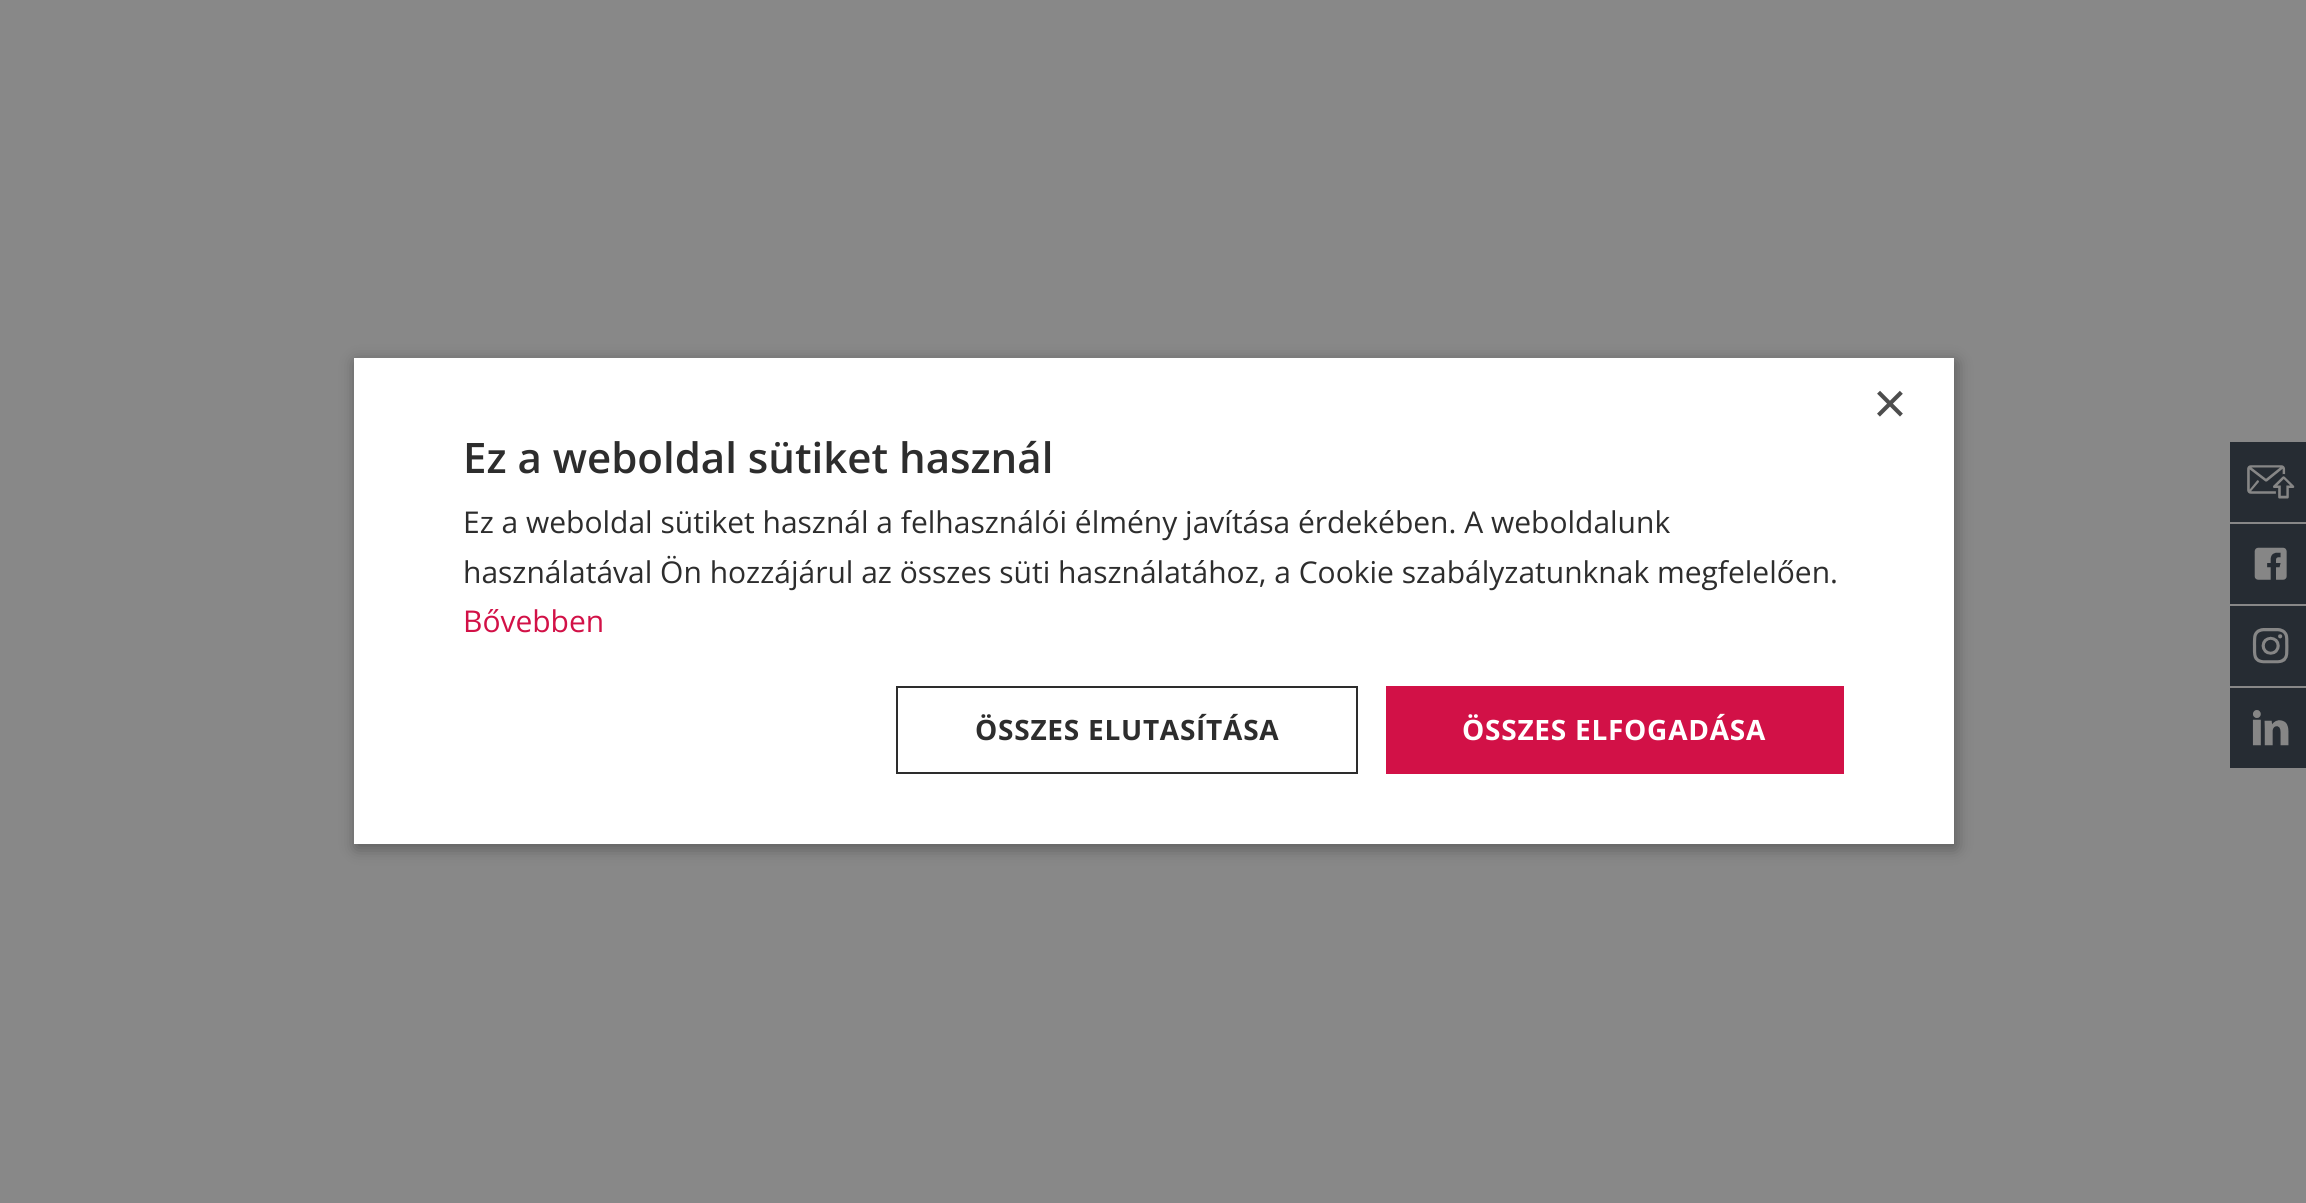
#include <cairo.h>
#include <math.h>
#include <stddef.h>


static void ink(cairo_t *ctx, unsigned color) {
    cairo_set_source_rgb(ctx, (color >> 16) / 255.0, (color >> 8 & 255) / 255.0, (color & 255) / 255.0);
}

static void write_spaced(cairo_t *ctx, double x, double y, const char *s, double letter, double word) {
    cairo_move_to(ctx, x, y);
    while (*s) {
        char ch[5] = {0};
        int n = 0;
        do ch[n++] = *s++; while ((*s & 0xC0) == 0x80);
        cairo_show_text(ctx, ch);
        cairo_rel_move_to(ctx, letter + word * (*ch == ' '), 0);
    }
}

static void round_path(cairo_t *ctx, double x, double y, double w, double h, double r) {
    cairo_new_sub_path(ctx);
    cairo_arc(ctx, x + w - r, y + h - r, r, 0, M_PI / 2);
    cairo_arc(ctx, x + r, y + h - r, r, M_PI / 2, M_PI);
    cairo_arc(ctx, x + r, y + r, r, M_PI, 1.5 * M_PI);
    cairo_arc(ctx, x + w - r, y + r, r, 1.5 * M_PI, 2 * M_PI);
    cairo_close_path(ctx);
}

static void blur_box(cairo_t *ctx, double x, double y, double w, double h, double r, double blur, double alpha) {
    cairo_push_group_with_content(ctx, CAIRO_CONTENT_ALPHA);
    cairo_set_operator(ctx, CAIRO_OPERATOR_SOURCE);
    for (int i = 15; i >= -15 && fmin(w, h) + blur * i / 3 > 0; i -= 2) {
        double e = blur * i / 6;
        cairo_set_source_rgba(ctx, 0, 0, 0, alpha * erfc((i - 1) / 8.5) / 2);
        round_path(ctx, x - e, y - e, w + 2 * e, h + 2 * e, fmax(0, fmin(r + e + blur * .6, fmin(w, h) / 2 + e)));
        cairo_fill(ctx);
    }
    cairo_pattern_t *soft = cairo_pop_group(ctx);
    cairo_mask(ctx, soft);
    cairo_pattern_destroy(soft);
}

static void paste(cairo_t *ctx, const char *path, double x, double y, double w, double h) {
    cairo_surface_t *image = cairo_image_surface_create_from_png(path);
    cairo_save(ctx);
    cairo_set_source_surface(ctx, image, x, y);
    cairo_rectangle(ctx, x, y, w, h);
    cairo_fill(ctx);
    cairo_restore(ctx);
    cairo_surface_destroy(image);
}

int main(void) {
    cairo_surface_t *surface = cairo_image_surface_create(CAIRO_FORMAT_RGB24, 2306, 1203);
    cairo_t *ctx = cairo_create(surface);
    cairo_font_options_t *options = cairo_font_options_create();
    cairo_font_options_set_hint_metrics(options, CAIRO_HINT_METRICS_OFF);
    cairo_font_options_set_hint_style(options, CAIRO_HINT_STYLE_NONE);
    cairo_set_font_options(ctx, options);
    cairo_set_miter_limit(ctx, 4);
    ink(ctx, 0x888888);
    cairo_paint(ctx);
    ink(ctx, 0x000000);
    blur_box(ctx, 356, 362, 1600, 486, 0, 8, 0.35);
    ink(ctx, 0xFFFFFF);
    cairo_rectangle(ctx, 354, 358, 1600, 486);
    cairo_fill(ctx);
    cairo_select_font_face(ctx, "Liberation Sans", CAIRO_FONT_SLANT_NORMAL, CAIRO_FONT_WEIGHT_NORMAL);
    cairo_set_font_size(ctx, 58);
    ink(ctx, 0x4D4D4D);
    cairo_move_to(ctx, 1873, 423);
    cairo_show_text(ctx, "×");
    cairo_select_font_face(ctx, "Open Sans SemiBold", CAIRO_FONT_SLANT_NORMAL, CAIRO_FONT_WEIGHT_NORMAL);
    cairo_set_font_size(ctx, 42);
    ink(ctx, 0x2D2D2D);
    cairo_move_to(ctx, 463, 473);
    cairo_show_text(ctx, "Ez a weboldal sütiket használ");
    cairo_select_font_face(ctx, "Open Sans", CAIRO_FONT_SLANT_NORMAL, CAIRO_FONT_WEIGHT_NORMAL);
    cairo_set_font_size(ctx, 30);
    cairo_move_to(ctx, 463, 533);
    cairo_show_text(ctx, "Ez a weboldal sütiket használ a felhasználói élmény javítása érdekében. A weboldalunk");
    cairo_move_to(ctx, 463, 583);
    cairo_show_text(ctx, "használatával Ön hozzájárul az összes süti használatához, a Cookie szabályzatunknak megfelelően.");
    ink(ctx, 0xD21147);
    cairo_move_to(ctx, 463, 632);
    cairo_show_text(ctx, "Bővebben");
    cairo_rectangle(ctx, 897, 687, 460, 86);
    ink(ctx, 0x2D2D2D);
    cairo_stroke(ctx);
    cairo_select_font_face(ctx, "Open Sans", CAIRO_FONT_SLANT_NORMAL, CAIRO_FONT_WEIGHT_BOLD);
    cairo_set_font_size(ctx, 28);
    write_spaced(ctx, 975, 740, "ÖSSZES ELUTASÍTÁSA", 0.75, 0);
    ink(ctx, 0xD21147);
    cairo_rectangle(ctx, 1386, 686, 458, 88);
    cairo_fill(ctx);
    ink(ctx, 0xFFFFFF);
    write_spaced(ctx, 1462, 740, "ÖSSZES ELFOGADÁSA", 0.75, 0);
    ink(ctx, 0x262C33);
    cairo_rectangle(ctx, 2230, 442, 76, 80);
    cairo_fill(ctx);
    paste(ctx, "media/1.png", 2247, 465, 48, 34);
    cairo_rectangle(ctx, 2230, 524, 76, 80);
    cairo_fill(ctx);
    paste(ctx, "media/2.png", 2254, 547, 33, 33);
    cairo_rectangle(ctx, 2230, 606, 76, 80);
    cairo_fill(ctx);
    paste(ctx, "media/3.png", 2252, 628, 37, 36);
    cairo_rectangle(ctx, 2230, 688, 76, 80);
    cairo_fill(ctx);
    paste(ctx, "media/4.png", 2252, 710, 37, 36);
    cairo_surface_write_to_png(surface, "image.png");
    cairo_font_options_destroy(options);
    cairo_destroy(ctx);
    cairo_surface_destroy(surface);
    return 0;
}
